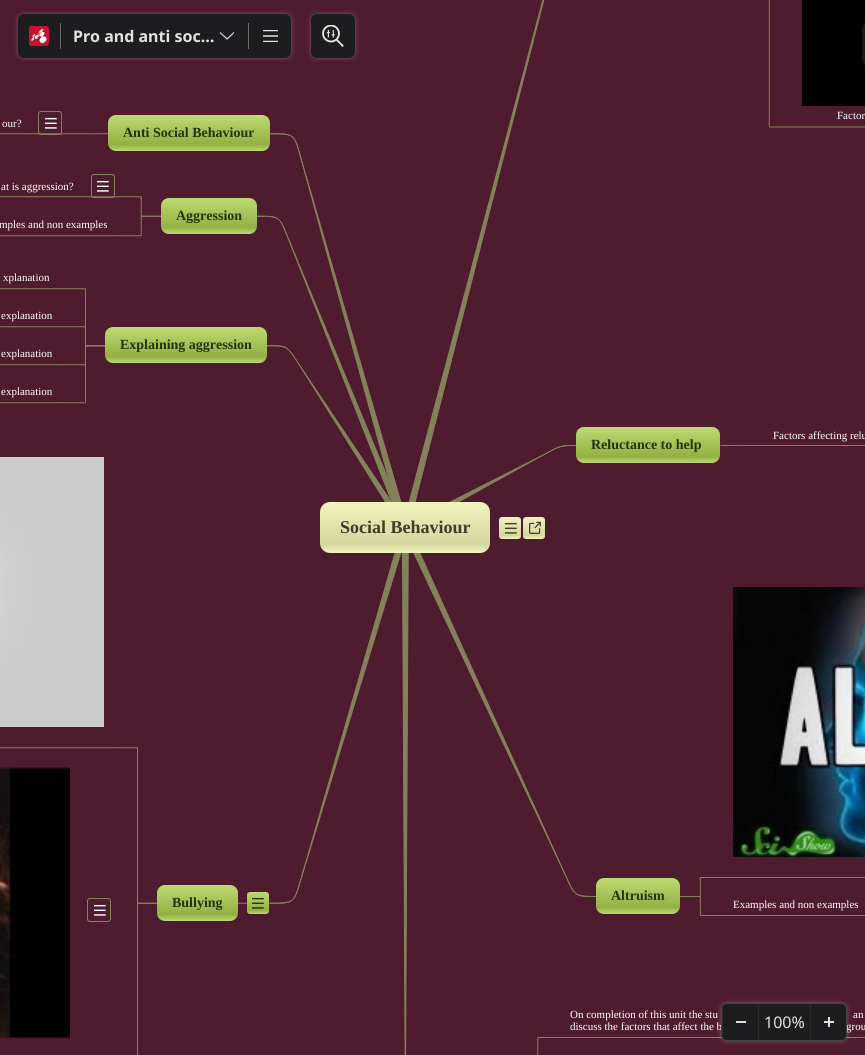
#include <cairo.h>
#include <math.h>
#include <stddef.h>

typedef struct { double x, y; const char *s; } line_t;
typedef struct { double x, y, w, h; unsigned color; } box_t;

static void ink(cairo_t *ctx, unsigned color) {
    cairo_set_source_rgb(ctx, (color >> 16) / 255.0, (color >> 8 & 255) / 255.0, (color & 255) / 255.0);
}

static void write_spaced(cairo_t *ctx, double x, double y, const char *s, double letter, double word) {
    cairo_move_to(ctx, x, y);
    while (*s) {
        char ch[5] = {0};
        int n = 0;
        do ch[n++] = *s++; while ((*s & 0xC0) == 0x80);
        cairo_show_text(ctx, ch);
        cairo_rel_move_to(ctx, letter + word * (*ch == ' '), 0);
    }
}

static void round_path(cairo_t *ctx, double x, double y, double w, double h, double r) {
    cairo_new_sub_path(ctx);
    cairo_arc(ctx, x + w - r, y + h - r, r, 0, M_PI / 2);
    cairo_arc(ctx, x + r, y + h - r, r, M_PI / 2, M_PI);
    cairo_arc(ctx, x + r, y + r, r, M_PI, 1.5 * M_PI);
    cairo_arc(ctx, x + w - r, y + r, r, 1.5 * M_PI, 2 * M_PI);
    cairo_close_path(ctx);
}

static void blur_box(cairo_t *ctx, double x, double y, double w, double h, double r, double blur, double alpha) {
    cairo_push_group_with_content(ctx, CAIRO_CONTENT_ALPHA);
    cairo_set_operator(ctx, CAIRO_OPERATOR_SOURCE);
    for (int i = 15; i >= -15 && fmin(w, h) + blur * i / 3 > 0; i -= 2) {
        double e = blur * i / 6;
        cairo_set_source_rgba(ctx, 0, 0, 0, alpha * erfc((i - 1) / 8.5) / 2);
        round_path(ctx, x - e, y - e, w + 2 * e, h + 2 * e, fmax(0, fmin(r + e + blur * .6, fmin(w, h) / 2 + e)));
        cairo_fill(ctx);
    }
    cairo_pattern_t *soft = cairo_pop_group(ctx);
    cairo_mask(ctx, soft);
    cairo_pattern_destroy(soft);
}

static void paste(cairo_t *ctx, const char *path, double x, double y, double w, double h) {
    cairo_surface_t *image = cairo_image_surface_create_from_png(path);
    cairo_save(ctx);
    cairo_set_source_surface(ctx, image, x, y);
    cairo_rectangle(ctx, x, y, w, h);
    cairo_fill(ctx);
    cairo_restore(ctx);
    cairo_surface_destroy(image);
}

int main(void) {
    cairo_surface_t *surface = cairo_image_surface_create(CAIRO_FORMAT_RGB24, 865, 1055);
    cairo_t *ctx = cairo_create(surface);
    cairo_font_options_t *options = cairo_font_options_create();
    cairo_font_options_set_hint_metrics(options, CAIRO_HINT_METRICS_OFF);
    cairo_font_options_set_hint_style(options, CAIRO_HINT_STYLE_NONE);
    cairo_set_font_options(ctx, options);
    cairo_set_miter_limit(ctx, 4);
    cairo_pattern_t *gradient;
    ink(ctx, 0x4F1C2F);
    cairo_paint(ctx);
    paste(ctx, "media/3.png", 0, 0, 865, 1055);
    ink(ctx, 0xFFFFFF);
    blur_box(ctx, 18, 14, 273, 44, 6, 2.5, 0.2);
    blur_box(ctx, 18, 14, 273, 44, 6, 1.5, 0.1);
    ink(ctx, 0x1D1D1F);
    round_path(ctx, 18, 14, 273, 44, 6);
    cairo_fill(ctx);
    paste(ctx, "media/1.png", 29, 26, 20, 20);
    ink(ctx, 0x6C6C6C);
    cairo_rectangle(ctx, 60, 23, 1, 26);
    cairo_fill(ctx);
    cairo_select_font_face(ctx, "Noto Sans", CAIRO_FONT_SLANT_NORMAL, CAIRO_FONT_WEIGHT_BOLD);
    cairo_set_font_size(ctx, 16);
    ink(ctx, 0xE1E1E1);
    cairo_move_to(ctx, 73, 42);
    cairo_show_text(ctx, "Pro and anti soc…");
    cairo_new_path(ctx);
    cairo_move_to(ctx, 234, 32.5);
    cairo_line_to(ctx, 227, 39);
    cairo_line_to(ctx, 220, 32.5);
    cairo_set_line_width(ctx, 1.1);
    cairo_stroke(ctx);
    ink(ctx, 0x6C6C6C);
    cairo_rectangle(ctx, 248, 23, 1, 26);
    cairo_fill(ctx);
    cairo_save(ctx);
    cairo_rectangle(ctx, 263, 30, 15, 12);
    cairo_clip(ctx);
    cairo_new_path(ctx);
    cairo_move_to(ctx, 263, 30.5);
    cairo_line_to(ctx, 278, 30.5);
    cairo_move_to(ctx, 263, 36);
    cairo_line_to(ctx, 278, 36);
    cairo_move_to(ctx, 263, 41.5);
    cairo_line_to(ctx, 278, 41.5);
    ink(ctx, 0xE1E1E1);
    cairo_set_line_width(ctx, 1.5);
    cairo_stroke(ctx);
    cairo_restore(ctx);
    ink(ctx, 0xFFFFFF);
    blur_box(ctx, 311, 14, 44, 44, 6, 2.5, 0.2);
    blur_box(ctx, 311, 14, 44, 44, 6, 1.5, 0.1);
    ink(ctx, 0x1D1D1F);
    round_path(ctx, 311, 14, 44, 44, 6);
    cairo_fill(ctx);
    paste(ctx, "media/2.png", 322, 25, 22, 22);
    ink(ctx, 0x000000);
    cairo_rectangle(ctx, 802, 0, 63, 106);
    cairo_fill(ctx);
    ink(ctx, 0x1A1A1A);
    cairo_new_path(ctx);
    cairo_move_to(ctx, 872, 20);
    cairo_line_to(ctx, 865, 20);
    cairo_line_to(ctx, 865, 68);
    cairo_line_to(ctx, 872, 68);
    cairo_curve_to(ctx, 866.5, 68, 862, 63.5, 862, 58);
    cairo_line_to(ctx, 862, 30);
    cairo_curve_to(ctx, 862, 24.5, 866.5, 20, 872, 20);
    cairo_close_path(ctx);
    cairo_fill(ctx);
    cairo_select_font_face(ctx, "Liberation Serif", CAIRO_FONT_SLANT_NORMAL, CAIRO_FONT_WEIGHT_NORMAL);
    cairo_set_font_size(ctx, 11);
    ink(ctx, 0xFFFFFF);
    cairo_move_to(ctx, 837, 119);
    cairo_show_text(ctx, "Factor");
    cairo_move_to(ctx, 2, 127);
    cairo_show_text(ctx, "our?");
    round_path(ctx, 38.5, 111.5, 23, 23, 2.5);
    ink(ctx, 0x84825B);
    cairo_set_line_width(ctx, 1);
    cairo_stroke(ctx);
    cairo_select_font_face(ctx, "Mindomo", CAIRO_FONT_SLANT_NORMAL, CAIRO_FONT_WEIGHT_NORMAL);
    cairo_set_font_size(ctx, 24);
    ink(ctx, 0xFFFFFF);
    write_spaced(ctx, 45, 129, "r", -1, 0);
    gradient = cairo_pattern_create_linear(189, 115, 189, 151);
    cairo_pattern_add_color_stop_rgba(gradient, 0, 0.745, 0.855, 0.451, 1);
    cairo_pattern_add_color_stop_rgba(gradient, 0.82, 0.576, 0.69, 0.259, 1);
    cairo_pattern_add_color_stop_rgba(gradient, 1, 0.745, 0.855, 0.451, 1);
    cairo_set_source(ctx, gradient);
    cairo_pattern_destroy(gradient);
    round_path(ctx, 108, 115, 162, 36, 8);
    cairo_fill(ctx);
    cairo_select_font_face(ctx, "Liberation Serif", CAIRO_FONT_SLANT_NORMAL, CAIRO_FONT_WEIGHT_BOLD);
    cairo_set_font_size(ctx, 14);
    ink(ctx, 0x1F3402);
    cairo_move_to(ctx, 123, 137);
    cairo_show_text(ctx, "Anti Social Behaviour");
    cairo_select_font_face(ctx, "Liberation Serif", CAIRO_FONT_SLANT_NORMAL, CAIRO_FONT_WEIGHT_NORMAL);
    cairo_set_font_size(ctx, 11);
    ink(ctx, 0xFFFFFF);
    cairo_move_to(ctx, 1, 190);
    cairo_show_text(ctx, "at is aggression?");
    round_path(ctx, 91.5, 174.5, 23, 23, 2.5);
    ink(ctx, 0x84825B);
    cairo_stroke(ctx);
    cairo_select_font_face(ctx, "Mindomo", CAIRO_FONT_SLANT_NORMAL, CAIRO_FONT_WEIGHT_NORMAL);
    cairo_set_font_size(ctx, 24);
    ink(ctx, 0xFFFFFF);
    write_spaced(ctx, 97, 192, "r", -1, 0);
    gradient = cairo_pattern_create_linear(209, 198, 209, 234);
    cairo_pattern_add_color_stop_rgba(gradient, 0, 0.745, 0.855, 0.451, 1);
    cairo_pattern_add_color_stop_rgba(gradient, 0.82, 0.576, 0.69, 0.259, 1);
    cairo_pattern_add_color_stop_rgba(gradient, 1, 0.745, 0.855, 0.451, 1);
    cairo_set_source(ctx, gradient);
    cairo_pattern_destroy(gradient);
    round_path(ctx, 161, 198, 96, 36, 8);
    cairo_fill(ctx);
    cairo_select_font_face(ctx, "Liberation Serif", CAIRO_FONT_SLANT_NORMAL, CAIRO_FONT_WEIGHT_BOLD);
    cairo_set_font_size(ctx, 14);
    ink(ctx, 0x1F3402);
    cairo_move_to(ctx, 176, 220);
    cairo_show_text(ctx, "Aggression");
    cairo_select_font_face(ctx, "Liberation Serif", CAIRO_FONT_SLANT_NORMAL, CAIRO_FONT_WEIGHT_NORMAL);
    cairo_set_font_size(ctx, 11);
    ink(ctx, 0xFFFFFF);
    {
        static const line_t items[] = {
            {-1, 228, "mples and non examples"},
            {3, 281, "xplanation"},
            {1, 319, "explanation"},
        };
        for (size_t i = 0; i < sizeof items / sizeof *items; i++) {
            cairo_move_to(ctx, items[i].x, items[i].y);
            cairo_show_text(ctx, items[i].s);
        }
    }
    gradient = cairo_pattern_create_linear(186, 327, 186, 363);
    cairo_pattern_add_color_stop_rgba(gradient, 0, 0.745, 0.855, 0.451, 1);
    cairo_pattern_add_color_stop_rgba(gradient, 0.82, 0.576, 0.69, 0.259, 1);
    cairo_pattern_add_color_stop_rgba(gradient, 1, 0.745, 0.855, 0.451, 1);
    cairo_set_source(ctx, gradient);
    cairo_pattern_destroy(gradient);
    round_path(ctx, 105, 327, 162, 36, 8);
    cairo_fill(ctx);
    cairo_select_font_face(ctx, "Liberation Serif", CAIRO_FONT_SLANT_NORMAL, CAIRO_FONT_WEIGHT_BOLD);
    cairo_set_font_size(ctx, 14);
    ink(ctx, 0x1F3402);
    cairo_move_to(ctx, 120, 349);
    cairo_show_text(ctx, "Explaining aggression");
    cairo_select_font_face(ctx, "Liberation Serif", CAIRO_FONT_SLANT_NORMAL, CAIRO_FONT_WEIGHT_NORMAL);
    cairo_set_font_size(ctx, 11);
    ink(ctx, 0xFFFFFF);
    {
        static const line_t items[] = {
            {1, 357, "explanation"},
            {1, 395, "explanation"},
            {773, 439, "Factors affecting relu"},
        };
        for (size_t i = 0; i < sizeof items / sizeof *items; i++) {
            cairo_move_to(ctx, items[i].x, items[i].y);
            cairo_show_text(ctx, items[i].s);
        }
    }
    gradient = cairo_pattern_create_linear(648, 427, 648, 463);
    cairo_pattern_add_color_stop_rgba(gradient, 0, 0.745, 0.855, 0.451, 1);
    cairo_pattern_add_color_stop_rgba(gradient, 0.82, 0.576, 0.69, 0.259, 1);
    cairo_pattern_add_color_stop_rgba(gradient, 1, 0.745, 0.855, 0.451, 1);
    cairo_set_source(ctx, gradient);
    cairo_pattern_destroy(gradient);
    round_path(ctx, 576, 427, 144, 36, 8);
    cairo_fill(ctx);
    cairo_select_font_face(ctx, "Liberation Serif", CAIRO_FONT_SLANT_NORMAL, CAIRO_FONT_WEIGHT_BOLD);
    cairo_set_font_size(ctx, 14);
    ink(ctx, 0x1F3402);
    cairo_move_to(ctx, 591, 449);
    cairo_show_text(ctx, "Reluctance to help");
    paste(ctx, "media/4.png", 0, 457, 104, 270);
    gradient = cairo_pattern_create_linear(405, 502, 405, 553);
    cairo_pattern_add_color_stop_rgba(gradient, 0, 0.949, 0.957, 0.741, 1);
    cairo_pattern_add_color_stop_rgba(gradient, 0.82, 0.835, 0.839, 0.62, 1);
    cairo_pattern_add_color_stop_rgba(gradient, 1, 0.949, 0.957, 0.741, 1);
    cairo_set_source(ctx, gradient);
    cairo_pattern_destroy(gradient);
    round_path(ctx, 320, 502, 170, 51, 10);
    cairo_fill(ctx);
    cairo_set_font_size(ctx, 18);
    ink(ctx, 0x3E3F27);
    cairo_move_to(ctx, 340, 533);
    cairo_show_text(ctx, "Social Behaviour");
    gradient = cairo_pattern_create_linear(510, 517, 510, 539);
    cairo_pattern_add_color_stop_rgba(gradient, 0, 0.949, 0.957, 0.741, 1);
    cairo_pattern_add_color_stop_rgba(gradient, 0.82, 0.835, 0.839, 0.62, 1);
    cairo_pattern_add_color_stop_rgba(gradient, 1, 0.949, 0.957, 0.741, 1);
    cairo_set_source(ctx, gradient);
    cairo_pattern_destroy(gradient);
    round_path(ctx, 499, 517, 22, 22, 3);
    cairo_fill(ctx);
    cairo_select_font_face(ctx, "Mindomo", CAIRO_FONT_SLANT_NORMAL, CAIRO_FONT_WEIGHT_NORMAL);
    cairo_set_font_size(ctx, 24);
    ink(ctx, 0x3E3F27);
    write_spaced(ctx, 505, 534, "r", -1, 0);
    gradient = cairo_pattern_create_linear(534, 517, 534, 539);
    cairo_pattern_add_color_stop_rgba(gradient, 0, 0.949, 0.957, 0.741, 1);
    cairo_pattern_add_color_stop_rgba(gradient, 0.82, 0.835, 0.839, 0.62, 1);
    cairo_pattern_add_color_stop_rgba(gradient, 1, 0.949, 0.957, 0.741, 1);
    cairo_set_source(ctx, gradient);
    cairo_pattern_destroy(gradient);
    round_path(ctx, 523, 517, 22, 22, 3);
    cairo_fill(ctx);
    ink(ctx, 0x3E3F27);
    write_spaced(ctx, 529, 534, "a", -1, 0);
    paste(ctx, "media/5.png", 733, 587, 132, 270);
    gradient = cairo_pattern_create_linear(638, 878, 638, 914);
    cairo_pattern_add_color_stop_rgba(gradient, 0, 0.745, 0.855, 0.451, 1);
    cairo_pattern_add_color_stop_rgba(gradient, 0.82, 0.576, 0.69, 0.259, 1);
    cairo_pattern_add_color_stop_rgba(gradient, 1, 0.745, 0.855, 0.451, 1);
    cairo_set_source(ctx, gradient);
    cairo_pattern_destroy(gradient);
    round_path(ctx, 596, 878, 84, 36, 8);
    cairo_fill(ctx);
    cairo_select_font_face(ctx, "Liberation Serif", CAIRO_FONT_SLANT_NORMAL, CAIRO_FONT_WEIGHT_BOLD);
    cairo_set_font_size(ctx, 14);
    ink(ctx, 0x1F3402);
    cairo_move_to(ctx, 611, 900);
    cairo_show_text(ctx, "Altruism");
    paste(ctx, "media/6.png", 0, 767, 70, 271);
    round_path(ctx, 87.5, 898.5, 23, 23, 2.5);
    ink(ctx, 0x84825B);
    cairo_stroke(ctx);
    cairo_select_font_face(ctx, "Mindomo", CAIRO_FONT_SLANT_NORMAL, CAIRO_FONT_WEIGHT_NORMAL);
    cairo_set_font_size(ctx, 24);
    ink(ctx, 0xFFFFFF);
    write_spaced(ctx, 94, 916, "r", -1, 0);
    gradient = cairo_pattern_create_linear(198, 885, 198, 921);
    cairo_pattern_add_color_stop_rgba(gradient, 0, 0.745, 0.855, 0.451, 1);
    cairo_pattern_add_color_stop_rgba(gradient, 0.82, 0.576, 0.69, 0.259, 1);
    cairo_pattern_add_color_stop_rgba(gradient, 1, 0.745, 0.855, 0.451, 1);
    cairo_set_source(ctx, gradient);
    cairo_pattern_destroy(gradient);
    round_path(ctx, 157, 885, 81, 36, 8);
    cairo_fill(ctx);
    cairo_select_font_face(ctx, "Liberation Serif", CAIRO_FONT_SLANT_NORMAL, CAIRO_FONT_WEIGHT_BOLD);
    cairo_set_font_size(ctx, 14);
    ink(ctx, 0x1F3402);
    cairo_move_to(ctx, 172, 907);
    cairo_show_text(ctx, "Bullying");
    gradient = cairo_pattern_create_linear(258, 892, 258, 914);
    cairo_pattern_add_color_stop_rgba(gradient, 0, 0.745, 0.855, 0.451, 1);
    cairo_pattern_add_color_stop_rgba(gradient, 0.82, 0.576, 0.69, 0.259, 1);
    cairo_pattern_add_color_stop_rgba(gradient, 1, 0.745, 0.855, 0.451, 1);
    cairo_set_source(ctx, gradient);
    cairo_pattern_destroy(gradient);
    round_path(ctx, 247, 892, 22, 22, 3);
    cairo_fill(ctx);
    cairo_select_font_face(ctx, "Mindomo", CAIRO_FONT_SLANT_NORMAL, CAIRO_FONT_WEIGHT_NORMAL);
    cairo_set_font_size(ctx, 24);
    ink(ctx, 0x1F3402);
    write_spaced(ctx, 252, 909, "r", -1, 0);
    cairo_select_font_face(ctx, "Liberation Serif", CAIRO_FONT_SLANT_NORMAL, CAIRO_FONT_WEIGHT_NORMAL);
    cairo_set_font_size(ctx, 11);
    ink(ctx, 0xFFFFFF);
    {
        static const line_t items[] = {
            {733, 908, "Examples and non examples"},
            {570, 1018, "On completion of this unit the stu"},
            {853, 1018, "an"},
            {570, 1030, "discuss the factors that affect the b"},
            {846, 1030, "grou"},
        };
        for (size_t i = 0; i < sizeof items / sizeof *items; i++) {
            cairo_move_to(ctx, items[i].x, items[i].y);
            cairo_show_text(ctx, items[i].s);
        }
    }
    ink(ctx, 0xFFFFFF);
    blur_box(ctx, 721, 1003, 126, 38, 6, 2.5, 0.2);
    blur_box(ctx, 721, 1003, 126, 38, 6, 1.5, 0.1);
    ink(ctx, 0x1D1D1F);
    round_path(ctx, 721.5, 1003.5, 125, 37, 5.5);
    cairo_fill_preserve(ctx);
    ink(ctx, 0x444444);
    cairo_stroke(ctx);
    cairo_save(ctx);
    round_path(ctx, 722, 1004, 124, 36, 5);
    cairo_clip(ctx);
    ink(ctx, 0x2C2C2C);
    cairo_rectangle(ctx, 722, 1004, 1, 36);
    cairo_fill(ctx);
    cairo_restore(ctx);
    ink(ctx, 0xE1E1E1);
    cairo_rectangle(ctx, 736, 1021, 10, 2);
    cairo_fill(ctx);
    ink(ctx, 0x2C2C2C);
    cairo_rectangle(ctx, 758, 1004, 1, 36);
    cairo_fill(ctx);
    cairo_select_font_face(ctx, "Noto Sans", CAIRO_FONT_SLANT_NORMAL, CAIRO_FONT_WEIGHT_NORMAL);
    cairo_set_font_size(ctx, 16);
    ink(ctx, 0xE1E1E1);
    cairo_move_to(ctx, 764, 1028);
    cairo_show_text(ctx, "100%");
    {
        static const box_t items[] = {
            {810, 1004, 1, 36, 0x2C2C2C},
            {824, 1021, 10, 2, 0xE1E1E1},
            {828, 1017, 2, 10, 0xE1E1E1},
        };
        for (size_t i = 0; i < sizeof items / sizeof *items; i++) {
            ink(ctx, items[i].color);
            cairo_rectangle(ctx, items[i].x, items[i].y, items[i].w, items[i].h);
            cairo_fill(ctx);
        }
    }
    cairo_surface_write_to_png(surface, "image.png");
    cairo_font_options_destroy(options);
    cairo_destroy(ctx);
    cairo_surface_destroy(surface);
    return 0;
}
